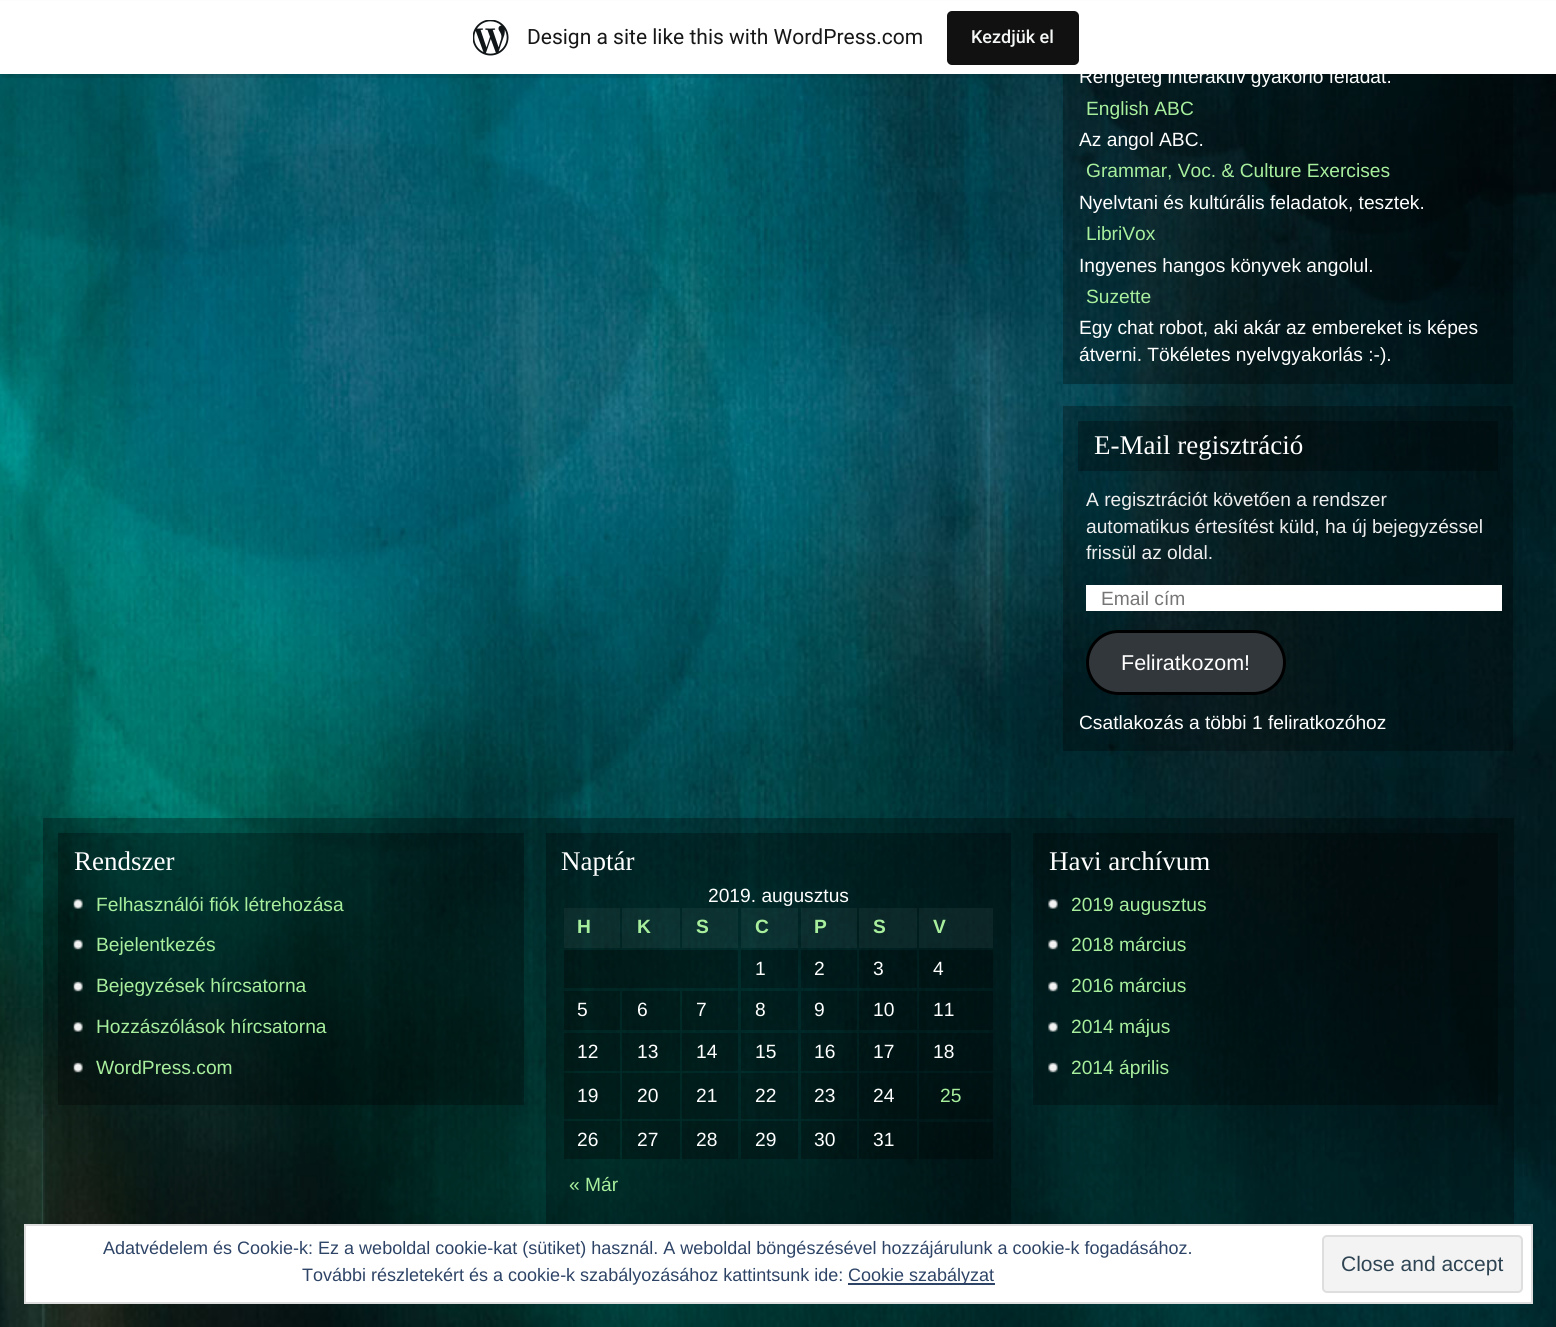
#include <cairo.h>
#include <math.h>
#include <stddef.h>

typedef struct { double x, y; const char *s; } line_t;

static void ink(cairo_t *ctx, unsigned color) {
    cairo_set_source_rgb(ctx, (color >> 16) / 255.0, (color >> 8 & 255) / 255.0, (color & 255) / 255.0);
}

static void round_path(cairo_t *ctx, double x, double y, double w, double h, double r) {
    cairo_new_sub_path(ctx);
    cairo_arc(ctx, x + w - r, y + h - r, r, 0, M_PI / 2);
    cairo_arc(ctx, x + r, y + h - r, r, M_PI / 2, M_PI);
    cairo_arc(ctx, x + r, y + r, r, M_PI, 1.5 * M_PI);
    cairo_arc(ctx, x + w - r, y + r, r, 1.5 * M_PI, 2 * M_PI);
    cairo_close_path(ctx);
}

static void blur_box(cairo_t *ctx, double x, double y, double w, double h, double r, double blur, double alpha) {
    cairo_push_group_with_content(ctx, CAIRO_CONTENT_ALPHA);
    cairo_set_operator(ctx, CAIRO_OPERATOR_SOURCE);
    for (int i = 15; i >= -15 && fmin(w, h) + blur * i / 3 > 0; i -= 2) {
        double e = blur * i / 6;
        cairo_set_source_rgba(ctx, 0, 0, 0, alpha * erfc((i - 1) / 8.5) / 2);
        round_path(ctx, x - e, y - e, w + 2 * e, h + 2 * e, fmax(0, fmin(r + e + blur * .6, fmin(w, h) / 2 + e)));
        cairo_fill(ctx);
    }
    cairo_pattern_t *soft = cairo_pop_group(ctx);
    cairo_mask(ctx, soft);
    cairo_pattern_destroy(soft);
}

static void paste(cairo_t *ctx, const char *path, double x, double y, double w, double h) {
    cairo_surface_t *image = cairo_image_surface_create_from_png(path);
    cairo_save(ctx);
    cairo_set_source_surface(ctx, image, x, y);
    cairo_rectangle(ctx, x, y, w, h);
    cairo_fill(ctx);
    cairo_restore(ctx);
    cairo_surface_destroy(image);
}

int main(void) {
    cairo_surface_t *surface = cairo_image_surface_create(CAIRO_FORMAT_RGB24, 1556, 1327);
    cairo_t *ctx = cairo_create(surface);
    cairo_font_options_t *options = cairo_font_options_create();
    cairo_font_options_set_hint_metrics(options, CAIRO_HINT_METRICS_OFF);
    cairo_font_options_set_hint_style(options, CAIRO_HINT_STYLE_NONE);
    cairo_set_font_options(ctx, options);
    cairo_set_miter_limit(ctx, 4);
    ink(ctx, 0xFFFFFF);
    cairo_paint(ctx);
    paste(ctx, "media/1.png", 0, 74, 1556, 1253);
    cairo_set_source_rgba(ctx, 0, 0, 0, 0.3);
    cairo_rectangle(ctx, 1063, 74, 450, 310);
    cairo_fill(ctx);
    ink(ctx, 0x000000);
    blur_box(ctx, 0, 2, 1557, 73, 0, 1.5, 0.05);
    cairo_set_source_rgba(ctx, 0, 0, 0, 0.08);
    cairo_new_path(ctx);
    cairo_move_to(ctx, 2, 74);
    cairo_line_to(ctx, 2, 78);
    cairo_line_to(ctx, 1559, 78);
    cairo_line_to(ctx, 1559, 5);
    cairo_line_to(ctx, 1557, 5);
    cairo_line_to(ctx, 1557, 74);
    cairo_close_path(ctx);
    cairo_fill(ctx);
    ink(ctx, 0xFFFFFF);
    cairo_rectangle(ctx, 0, 1, 1556, 73);
    cairo_fill(ctx);
    paste(ctx, "media/2.png", 473, 20, 36, 36);
    cairo_select_font_face(ctx, "Roboto", CAIRO_FONT_SLANT_NORMAL, CAIRO_FONT_WEIGHT_NORMAL);
    cairo_set_font_size(ctx, 21);
    ink(ctx, 0x171717);
    cairo_move_to(ctx, 527, 44);
    cairo_show_text(ctx, "Design a site like this with WordPress.com");
    ink(ctx, 0x111111);
    round_path(ctx, 947, 11, 132, 54, 5);
    cairo_fill(ctx);
    cairo_select_font_face(ctx, "Roboto Medium", CAIRO_FONT_SLANT_NORMAL, CAIRO_FONT_WEIGHT_NORMAL);
    cairo_set_font_size(ctx, 18);
    ink(ctx, 0xF6F7F7);
    cairo_move_to(ctx, 971, 43);
    cairo_show_text(ctx, "Kezdjük el");
    cairo_select_font_face(ctx, "Liberation Sans", CAIRO_FONT_SLANT_NORMAL, CAIRO_FONT_WEIGHT_NORMAL);
    cairo_set_font_size(ctx, 19.2);
    ink(ctx, 0xFFFFFF);
    cairo_move_to(ctx, 1079, 83);
    cairo_show_text(ctx, "Rengeteg interaktív gyakorló feladat.");
    ink(ctx, 0xA8EF9D);
    cairo_move_to(ctx, 1086, 115);
    cairo_show_text(ctx, "English ABC");
    ink(ctx, 0xFFFFFF);
    cairo_move_to(ctx, 1079, 146);
    cairo_show_text(ctx, "Az angol ABC.");
    ink(ctx, 0xA8EF9D);
    cairo_move_to(ctx, 1086, 177);
    cairo_show_text(ctx, "Grammar, Voc. & Culture Exercises");
    ink(ctx, 0xFFFFFF);
    cairo_move_to(ctx, 1079, 209);
    cairo_show_text(ctx, "Nyelvtani és kultúrális feladatok, tesztek.");
    ink(ctx, 0xA8EF9D);
    cairo_move_to(ctx, 1086, 240);
    cairo_show_text(ctx, "LibriVox");
    ink(ctx, 0xFFFFFF);
    cairo_move_to(ctx, 1079, 272);
    cairo_show_text(ctx, "Ingyenes hangos könyvek angolul.");
    ink(ctx, 0xA8EF9D);
    cairo_move_to(ctx, 1086, 303);
    cairo_show_text(ctx, "Suzette");
    ink(ctx, 0xFFFFFF);
    cairo_move_to(ctx, 1079, 334);
    cairo_show_text(ctx, "Egy chat robot, aki akár az embereket is képes");
    cairo_move_to(ctx, 1079, 361);
    cairo_show_text(ctx, "átverni. Tökéletes nyelvgyakorlás :-).");
    cairo_set_source_rgba(ctx, 0, 0, 0, 0.3);
    cairo_rectangle(ctx, 1063, 406, 450, 345);
    cairo_fill(ctx);
    cairo_rectangle(ctx, 1078, 421, 420, 50);
    cairo_fill(ctx);
    cairo_select_font_face(ctx, "Liberation Serif", CAIRO_FONT_SLANT_NORMAL, CAIRO_FONT_WEIGHT_NORMAL);
    cairo_set_font_size(ctx, 27);
    ink(ctx, 0xFFFFFF);
    cairo_move_to(ctx, 1094, 454);
    cairo_show_text(ctx, "E-Mail regisztráció");
    cairo_select_font_face(ctx, "Liberation Sans", CAIRO_FONT_SLANT_NORMAL, CAIRO_FONT_WEIGHT_NORMAL);
    cairo_set_font_size(ctx, 19.2);
    ink(ctx, 0xEEEEEE);
    {
        static const line_t items[] = {
            {1086, 506, "A regisztrációt követően a rendszer"},
            {1086, 533, "automatikus értesítést küld, ha új bejegyzéssel"},
            {1086, 559, "frissül az oldal."},
        };
        for (size_t i = 0; i < sizeof items / sizeof *items; i++) {
            cairo_move_to(ctx, items[i].x, items[i].y);
            cairo_show_text(ctx, items[i].s);
        }
    }
    ink(ctx, 0xFFFFFF);
    cairo_rectangle(ctx, 1086, 585, 416, 26);
    cairo_fill(ctx);
    ink(ctx, 0x757575);
    cairo_move_to(ctx, 1101, 605);
    cairo_show_text(ctx, "Email cím");
    ink(ctx, 0x32373C);
    round_path(ctx, 1087.5, 631.5, 197, 62, 31);
    cairo_fill_preserve(ctx);
    ink(ctx, 0x000000);
    cairo_set_line_width(ctx, 3);
    cairo_stroke(ctx);
    cairo_set_font_size(ctx, 21.5);
    ink(ctx, 0xFFFFFF);
    cairo_move_to(ctx, 1121, 670);
    cairo_show_text(ctx, "Feliratkozom!");
    cairo_set_font_size(ctx, 19.2);
    cairo_move_to(ctx, 1079, 729);
    cairo_show_text(ctx, "Csatlakozás a többi 1 feliratkozóhoz");
    cairo_set_source_rgba(ctx, 0, 0, 0, 0.3);
    cairo_rectangle(ctx, 43, 818, 1471, 406);
    cairo_fill(ctx);
    cairo_rectangle(ctx, 58, 833, 466, 272);
    cairo_fill(ctx);
    cairo_select_font_face(ctx, "Liberation Serif", CAIRO_FONT_SLANT_NORMAL, CAIRO_FONT_WEIGHT_NORMAL);
    cairo_set_font_size(ctx, 27);
    ink(ctx, 0xFFFFFF);
    cairo_move_to(ctx, 74, 870);
    cairo_show_text(ctx, "Rendszer");
    paste(ctx, "media/3.png", 73, 899, 10, 10);
    cairo_select_font_face(ctx, "Liberation Sans", CAIRO_FONT_SLANT_NORMAL, CAIRO_FONT_WEIGHT_NORMAL);
    cairo_set_font_size(ctx, 19.2);
    ink(ctx, 0xA8EF9D);
    cairo_move_to(ctx, 96, 911);
    cairo_show_text(ctx, "Felhasználói fiók létrehozása");
    paste(ctx, "media/4.png", 73, 939, 10, 11);
    cairo_move_to(ctx, 96, 951);
    cairo_show_text(ctx, "Bejelentkezés");
    paste(ctx, "media/5.png", 73, 981, 10, 11);
    cairo_move_to(ctx, 96, 992);
    cairo_show_text(ctx, "Bejegyzések hírcsatorna");
    paste(ctx, "media/6.png", 73, 1022, 10, 10);
    cairo_move_to(ctx, 96, 1033);
    cairo_show_text(ctx, "Hozzászólások hírcsatorna");
    paste(ctx, "media/7.png", 73, 1062, 10, 11);
    cairo_move_to(ctx, 96, 1074);
    cairo_show_text(ctx, "WordPress.com");
    cairo_set_source_rgba(ctx, 0, 0, 0, 0.3);
    cairo_rectangle(ctx, 546, 833, 465, 391);
    cairo_fill(ctx);
    cairo_select_font_face(ctx, "Liberation Serif", CAIRO_FONT_SLANT_NORMAL, CAIRO_FONT_WEIGHT_NORMAL);
    cairo_set_font_size(ctx, 27);
    ink(ctx, 0xFFFFFF);
    cairo_move_to(ctx, 561, 870);
    cairo_show_text(ctx, "Naptár");
    cairo_select_font_face(ctx, "Liberation Sans", CAIRO_FONT_SLANT_NORMAL, CAIRO_FONT_WEIGHT_NORMAL);
    cairo_set_font_size(ctx, 19.2);
    cairo_move_to(ctx, 708, 902);
    cairo_show_text(ctx, "2019. augusztus");
    cairo_set_source_rgba(ctx, 1, 1, 1, 0.05);
    cairo_rectangle(ctx, 564, 908, 56, 40);
    cairo_fill(ctx);
    cairo_select_font_face(ctx, "Liberation Sans", CAIRO_FONT_SLANT_NORMAL, CAIRO_FONT_WEIGHT_BOLD);
    ink(ctx, 0xA8EF9D);
    cairo_move_to(ctx, 577, 933);
    cairo_show_text(ctx, "H");
    cairo_set_source_rgba(ctx, 1, 1, 1, 0.05);
    cairo_rectangle(ctx, 622, 908, 58, 40);
    cairo_fill(ctx);
    ink(ctx, 0xA8EF9D);
    cairo_move_to(ctx, 637, 933);
    cairo_show_text(ctx, "K");
    cairo_set_source_rgba(ctx, 1, 1, 1, 0.05);
    cairo_rectangle(ctx, 682, 908, 56, 40);
    cairo_fill(ctx);
    ink(ctx, 0xA8EF9D);
    cairo_move_to(ctx, 696, 933);
    cairo_show_text(ctx, "S");
    cairo_set_source_rgba(ctx, 1, 1, 1, 0.05);
    cairo_rectangle(ctx, 741, 908, 57, 40);
    cairo_fill(ctx);
    ink(ctx, 0xA8EF9D);
    cairo_move_to(ctx, 755, 933);
    cairo_show_text(ctx, "C");
    cairo_set_source_rgba(ctx, 1, 1, 1, 0.05);
    cairo_rectangle(ctx, 801, 908, 56, 40);
    cairo_fill(ctx);
    ink(ctx, 0xA8EF9D);
    cairo_move_to(ctx, 814, 933);
    cairo_show_text(ctx, "P");
    cairo_set_source_rgba(ctx, 1, 1, 1, 0.05);
    cairo_rectangle(ctx, 859, 908, 58, 40);
    cairo_fill(ctx);
    ink(ctx, 0xA8EF9D);
    cairo_move_to(ctx, 873, 933);
    cairo_show_text(ctx, "S");
    cairo_set_source_rgba(ctx, 1, 1, 1, 0.05);
    cairo_rectangle(ctx, 919, 908, 74, 40);
    cairo_fill(ctx);
    ink(ctx, 0xA8EF9D);
    cairo_move_to(ctx, 933, 933);
    cairo_show_text(ctx, "V");
    cairo_set_source_rgba(ctx, 0, 0, 0, 0.3);
    cairo_rectangle(ctx, 564, 950, 174, 38);
    cairo_fill(ctx);
    cairo_rectangle(ctx, 741, 950, 57, 38);
    cairo_fill(ctx);
    cairo_select_font_face(ctx, "Liberation Sans", CAIRO_FONT_SLANT_NORMAL, CAIRO_FONT_WEIGHT_NORMAL);
    ink(ctx, 0xFFFFFF);
    cairo_move_to(ctx, 755, 975);
    cairo_show_text(ctx, "1");
    cairo_set_source_rgba(ctx, 0, 0, 0, 0.3);
    cairo_rectangle(ctx, 801, 950, 56, 38);
    cairo_fill(ctx);
    ink(ctx, 0xFFFFFF);
    cairo_move_to(ctx, 814, 975);
    cairo_show_text(ctx, "2");
    cairo_set_source_rgba(ctx, 0, 0, 0, 0.3);
    cairo_rectangle(ctx, 859, 950, 58, 38);
    cairo_fill(ctx);
    ink(ctx, 0xFFFFFF);
    cairo_move_to(ctx, 873, 975);
    cairo_show_text(ctx, "3");
    cairo_set_source_rgba(ctx, 0, 0, 0, 0.3);
    cairo_rectangle(ctx, 919, 950, 74, 38);
    cairo_fill(ctx);
    ink(ctx, 0xFFFFFF);
    cairo_move_to(ctx, 933, 975);
    cairo_show_text(ctx, "4");
    cairo_set_source_rgba(ctx, 0, 0, 0, 0.3);
    cairo_rectangle(ctx, 564, 991, 56, 39);
    cairo_fill(ctx);
    ink(ctx, 0xFFFFFF);
    cairo_move_to(ctx, 577, 1016);
    cairo_show_text(ctx, "5");
    cairo_set_source_rgba(ctx, 0, 0, 0, 0.3);
    cairo_rectangle(ctx, 622, 991, 58, 39);
    cairo_fill(ctx);
    ink(ctx, 0xFFFFFF);
    cairo_move_to(ctx, 637, 1016);
    cairo_show_text(ctx, "6");
    cairo_set_source_rgba(ctx, 0, 0, 0, 0.3);
    cairo_rectangle(ctx, 682, 991, 56, 39);
    cairo_fill(ctx);
    ink(ctx, 0xFFFFFF);
    cairo_move_to(ctx, 696, 1016);
    cairo_show_text(ctx, "7");
    cairo_set_source_rgba(ctx, 0, 0, 0, 0.3);
    cairo_rectangle(ctx, 741, 991, 57, 39);
    cairo_fill(ctx);
    ink(ctx, 0xFFFFFF);
    cairo_move_to(ctx, 755, 1016);
    cairo_show_text(ctx, "8");
    cairo_set_source_rgba(ctx, 0, 0, 0, 0.3);
    cairo_rectangle(ctx, 801, 991, 56, 39);
    cairo_fill(ctx);
    ink(ctx, 0xFFFFFF);
    cairo_move_to(ctx, 814, 1016);
    cairo_show_text(ctx, "9");
    cairo_set_source_rgba(ctx, 0, 0, 0, 0.3);
    cairo_rectangle(ctx, 859, 991, 58, 39);
    cairo_fill(ctx);
    ink(ctx, 0xFFFFFF);
    cairo_move_to(ctx, 873, 1016);
    cairo_show_text(ctx, "10");
    cairo_set_source_rgba(ctx, 0, 0, 0, 0.3);
    cairo_rectangle(ctx, 919, 991, 74, 39);
    cairo_fill(ctx);
    ink(ctx, 0xFFFFFF);
    cairo_move_to(ctx, 933, 1016);
    cairo_show_text(ctx, "11");
    cairo_set_source_rgba(ctx, 0, 0, 0, 0.3);
    cairo_rectangle(ctx, 564, 1033, 56, 38);
    cairo_fill(ctx);
    ink(ctx, 0xFFFFFF);
    cairo_move_to(ctx, 577, 1058);
    cairo_show_text(ctx, "12");
    cairo_set_source_rgba(ctx, 0, 0, 0, 0.3);
    cairo_rectangle(ctx, 622, 1033, 58, 38);
    cairo_fill(ctx);
    ink(ctx, 0xFFFFFF);
    cairo_move_to(ctx, 637, 1058);
    cairo_show_text(ctx, "13");
    cairo_set_source_rgba(ctx, 0, 0, 0, 0.3);
    cairo_rectangle(ctx, 682, 1033, 56, 38);
    cairo_fill(ctx);
    ink(ctx, 0xFFFFFF);
    cairo_move_to(ctx, 696, 1058);
    cairo_show_text(ctx, "14");
    cairo_set_source_rgba(ctx, 0, 0, 0, 0.3);
    cairo_rectangle(ctx, 741, 1033, 57, 38);
    cairo_fill(ctx);
    ink(ctx, 0xFFFFFF);
    cairo_move_to(ctx, 755, 1058);
    cairo_show_text(ctx, "15");
    cairo_set_source_rgba(ctx, 0, 0, 0, 0.3);
    cairo_rectangle(ctx, 801, 1033, 56, 38);
    cairo_fill(ctx);
    ink(ctx, 0xFFFFFF);
    cairo_move_to(ctx, 814, 1058);
    cairo_show_text(ctx, "16");
    cairo_set_source_rgba(ctx, 0, 0, 0, 0.3);
    cairo_rectangle(ctx, 859, 1033, 58, 38);
    cairo_fill(ctx);
    ink(ctx, 0xFFFFFF);
    cairo_move_to(ctx, 873, 1058);
    cairo_show_text(ctx, "17");
    cairo_set_source_rgba(ctx, 0, 0, 0, 0.3);
    cairo_rectangle(ctx, 919, 1033, 74, 38);
    cairo_fill(ctx);
    ink(ctx, 0xFFFFFF);
    cairo_move_to(ctx, 933, 1058);
    cairo_show_text(ctx, "18");
    cairo_set_source_rgba(ctx, 0, 0, 0, 0.3);
    cairo_rectangle(ctx, 564, 1073, 56, 46);
    cairo_fill(ctx);
    ink(ctx, 0xFFFFFF);
    cairo_move_to(ctx, 577, 1102);
    cairo_show_text(ctx, "19");
    cairo_set_source_rgba(ctx, 0, 0, 0, 0.3);
    cairo_rectangle(ctx, 622, 1073, 58, 46);
    cairo_fill(ctx);
    ink(ctx, 0xFFFFFF);
    cairo_move_to(ctx, 637, 1102);
    cairo_show_text(ctx, "20");
    cairo_set_source_rgba(ctx, 0, 0, 0, 0.3);
    cairo_rectangle(ctx, 682, 1073, 56, 46);
    cairo_fill(ctx);
    ink(ctx, 0xFFFFFF);
    cairo_move_to(ctx, 696, 1102);
    cairo_show_text(ctx, "21");
    cairo_set_source_rgba(ctx, 0, 0, 0, 0.3);
    cairo_rectangle(ctx, 741, 1073, 57, 46);
    cairo_fill(ctx);
    ink(ctx, 0xFFFFFF);
    cairo_move_to(ctx, 755, 1102);
    cairo_show_text(ctx, "22");
    cairo_set_source_rgba(ctx, 0, 0, 0, 0.3);
    cairo_rectangle(ctx, 801, 1073, 56, 46);
    cairo_fill(ctx);
    ink(ctx, 0xFFFFFF);
    cairo_move_to(ctx, 814, 1102);
    cairo_show_text(ctx, "23");
    cairo_set_source_rgba(ctx, 0, 0, 0, 0.3);
    cairo_rectangle(ctx, 859, 1073, 58, 46);
    cairo_fill(ctx);
    ink(ctx, 0xFFFFFF);
    cairo_move_to(ctx, 873, 1102);
    cairo_show_text(ctx, "24");
    cairo_set_source_rgba(ctx, 0, 0, 0, 0.3);
    cairo_rectangle(ctx, 919, 1073, 74, 46);
    cairo_fill(ctx);
    ink(ctx, 0xA8EF9D);
    cairo_move_to(ctx, 940, 1102);
    cairo_show_text(ctx, "25");
    cairo_set_source_rgba(ctx, 0, 0, 0, 0.3);
    cairo_rectangle(ctx, 564, 1121, 56, 38);
    cairo_fill(ctx);
    ink(ctx, 0xFFFFFF);
    cairo_move_to(ctx, 577, 1146);
    cairo_show_text(ctx, "26");
    cairo_set_source_rgba(ctx, 0, 0, 0, 0.3);
    cairo_rectangle(ctx, 622, 1121, 58, 38);
    cairo_fill(ctx);
    ink(ctx, 0xFFFFFF);
    cairo_move_to(ctx, 637, 1146);
    cairo_show_text(ctx, "27");
    cairo_set_source_rgba(ctx, 0, 0, 0, 0.3);
    cairo_rectangle(ctx, 682, 1121, 56, 38);
    cairo_fill(ctx);
    ink(ctx, 0xFFFFFF);
    cairo_move_to(ctx, 696, 1146);
    cairo_show_text(ctx, "28");
    cairo_set_source_rgba(ctx, 0, 0, 0, 0.3);
    cairo_rectangle(ctx, 741, 1121, 57, 38);
    cairo_fill(ctx);
    ink(ctx, 0xFFFFFF);
    cairo_move_to(ctx, 755, 1146);
    cairo_show_text(ctx, "29");
    cairo_set_source_rgba(ctx, 0, 0, 0, 0.3);
    cairo_rectangle(ctx, 801, 1121, 56, 38);
    cairo_fill(ctx);
    ink(ctx, 0xFFFFFF);
    cairo_move_to(ctx, 814, 1146);
    cairo_show_text(ctx, "30");
    cairo_set_source_rgba(ctx, 0, 0, 0, 0.3);
    cairo_rectangle(ctx, 859, 1121, 58, 38);
    cairo_fill(ctx);
    ink(ctx, 0xFFFFFF);
    cairo_move_to(ctx, 873, 1146);
    cairo_show_text(ctx, "31");
    cairo_set_source_rgba(ctx, 0, 0, 0, 0.3);
    cairo_rectangle(ctx, 919, 1122, 74, 37);
    cairo_fill(ctx);
    ink(ctx, 0xA8EF9D);
    cairo_move_to(ctx, 569, 1191);
    cairo_show_text(ctx, "« Már");
    cairo_set_source_rgba(ctx, 0, 0, 0, 0.3);
    cairo_rectangle(ctx, 1033, 833, 465, 272);
    cairo_fill(ctx);
    cairo_select_font_face(ctx, "Liberation Serif", CAIRO_FONT_SLANT_NORMAL, CAIRO_FONT_WEIGHT_NORMAL);
    cairo_set_font_size(ctx, 27);
    ink(ctx, 0xFFFFFF);
    cairo_move_to(ctx, 1049, 870);
    cairo_show_text(ctx, "Havi archívum");
    paste(ctx, "media/8.png", 1048, 899, 10, 10);
    cairo_select_font_face(ctx, "Liberation Sans", CAIRO_FONT_SLANT_NORMAL, CAIRO_FONT_WEIGHT_NORMAL);
    cairo_set_font_size(ctx, 19.2);
    ink(ctx, 0xA8EF9D);
    cairo_move_to(ctx, 1071, 911);
    cairo_show_text(ctx, "2019 augusztus");
    paste(ctx, "media/9.png", 1048, 939, 10, 11);
    cairo_move_to(ctx, 1071, 951);
    cairo_show_text(ctx, "2018 március");
    paste(ctx, "media/10.png", 1048, 981, 10, 11);
    cairo_move_to(ctx, 1071, 992);
    cairo_show_text(ctx, "2016 március");
    paste(ctx, "media/11.png", 1048, 1022, 10, 10);
    cairo_move_to(ctx, 1071, 1033);
    cairo_show_text(ctx, "2014 május");
    paste(ctx, "media/12.png", 1048, 1062, 10, 11);
    cairo_move_to(ctx, 1071, 1074);
    cairo_show_text(ctx, "2014 április");
    ink(ctx, 0xFFFFFF);
    cairo_rectangle(ctx, 25, 1225, 1507, 78);
    cairo_fill_preserve(ctx);
    ink(ctx, 0xDEDEDE);
    cairo_set_line_width(ctx, 2);
    cairo_stroke(ctx);
    cairo_set_font_size(ctx, 18);
    ink(ctx, 0x2E4467);
    cairo_move_to(ctx, 103, 1254);
    cairo_show_text(ctx, "Adatvédelem és Cookie-k: Ez a weboldal cookie-kat (sütiket) használ. A weboldal böngészésével hozzájárulunk a cookie-k fogadásához.");
    cairo_move_to(ctx, 302, 1281);
    cairo_show_text(ctx, "További részletekért és a cookie-k szabályozásához kattintsunk ide:");
    cairo_rectangle(ctx, 848, 1283, 147, 2);
    cairo_fill(ctx);
    cairo_move_to(ctx, 848, 1281);
    cairo_show_text(ctx, "Cookie szabályzat");
    ink(ctx, 0xF3F3F3);
    round_path(ctx, 1323, 1236, 199, 56, 4);
    cairo_fill_preserve(ctx);
    ink(ctx, 0xDEDEDE);
    cairo_stroke(ctx);
    cairo_set_font_size(ctx, 21);
    ink(ctx, 0x2E4453);
    cairo_move_to(ctx, 1341, 1271);
    cairo_show_text(ctx, "Close and accept");
    cairo_surface_write_to_png(surface, "image.png");
    cairo_font_options_destroy(options);
    cairo_destroy(ctx);
    cairo_surface_destroy(surface);
    return 0;
}
